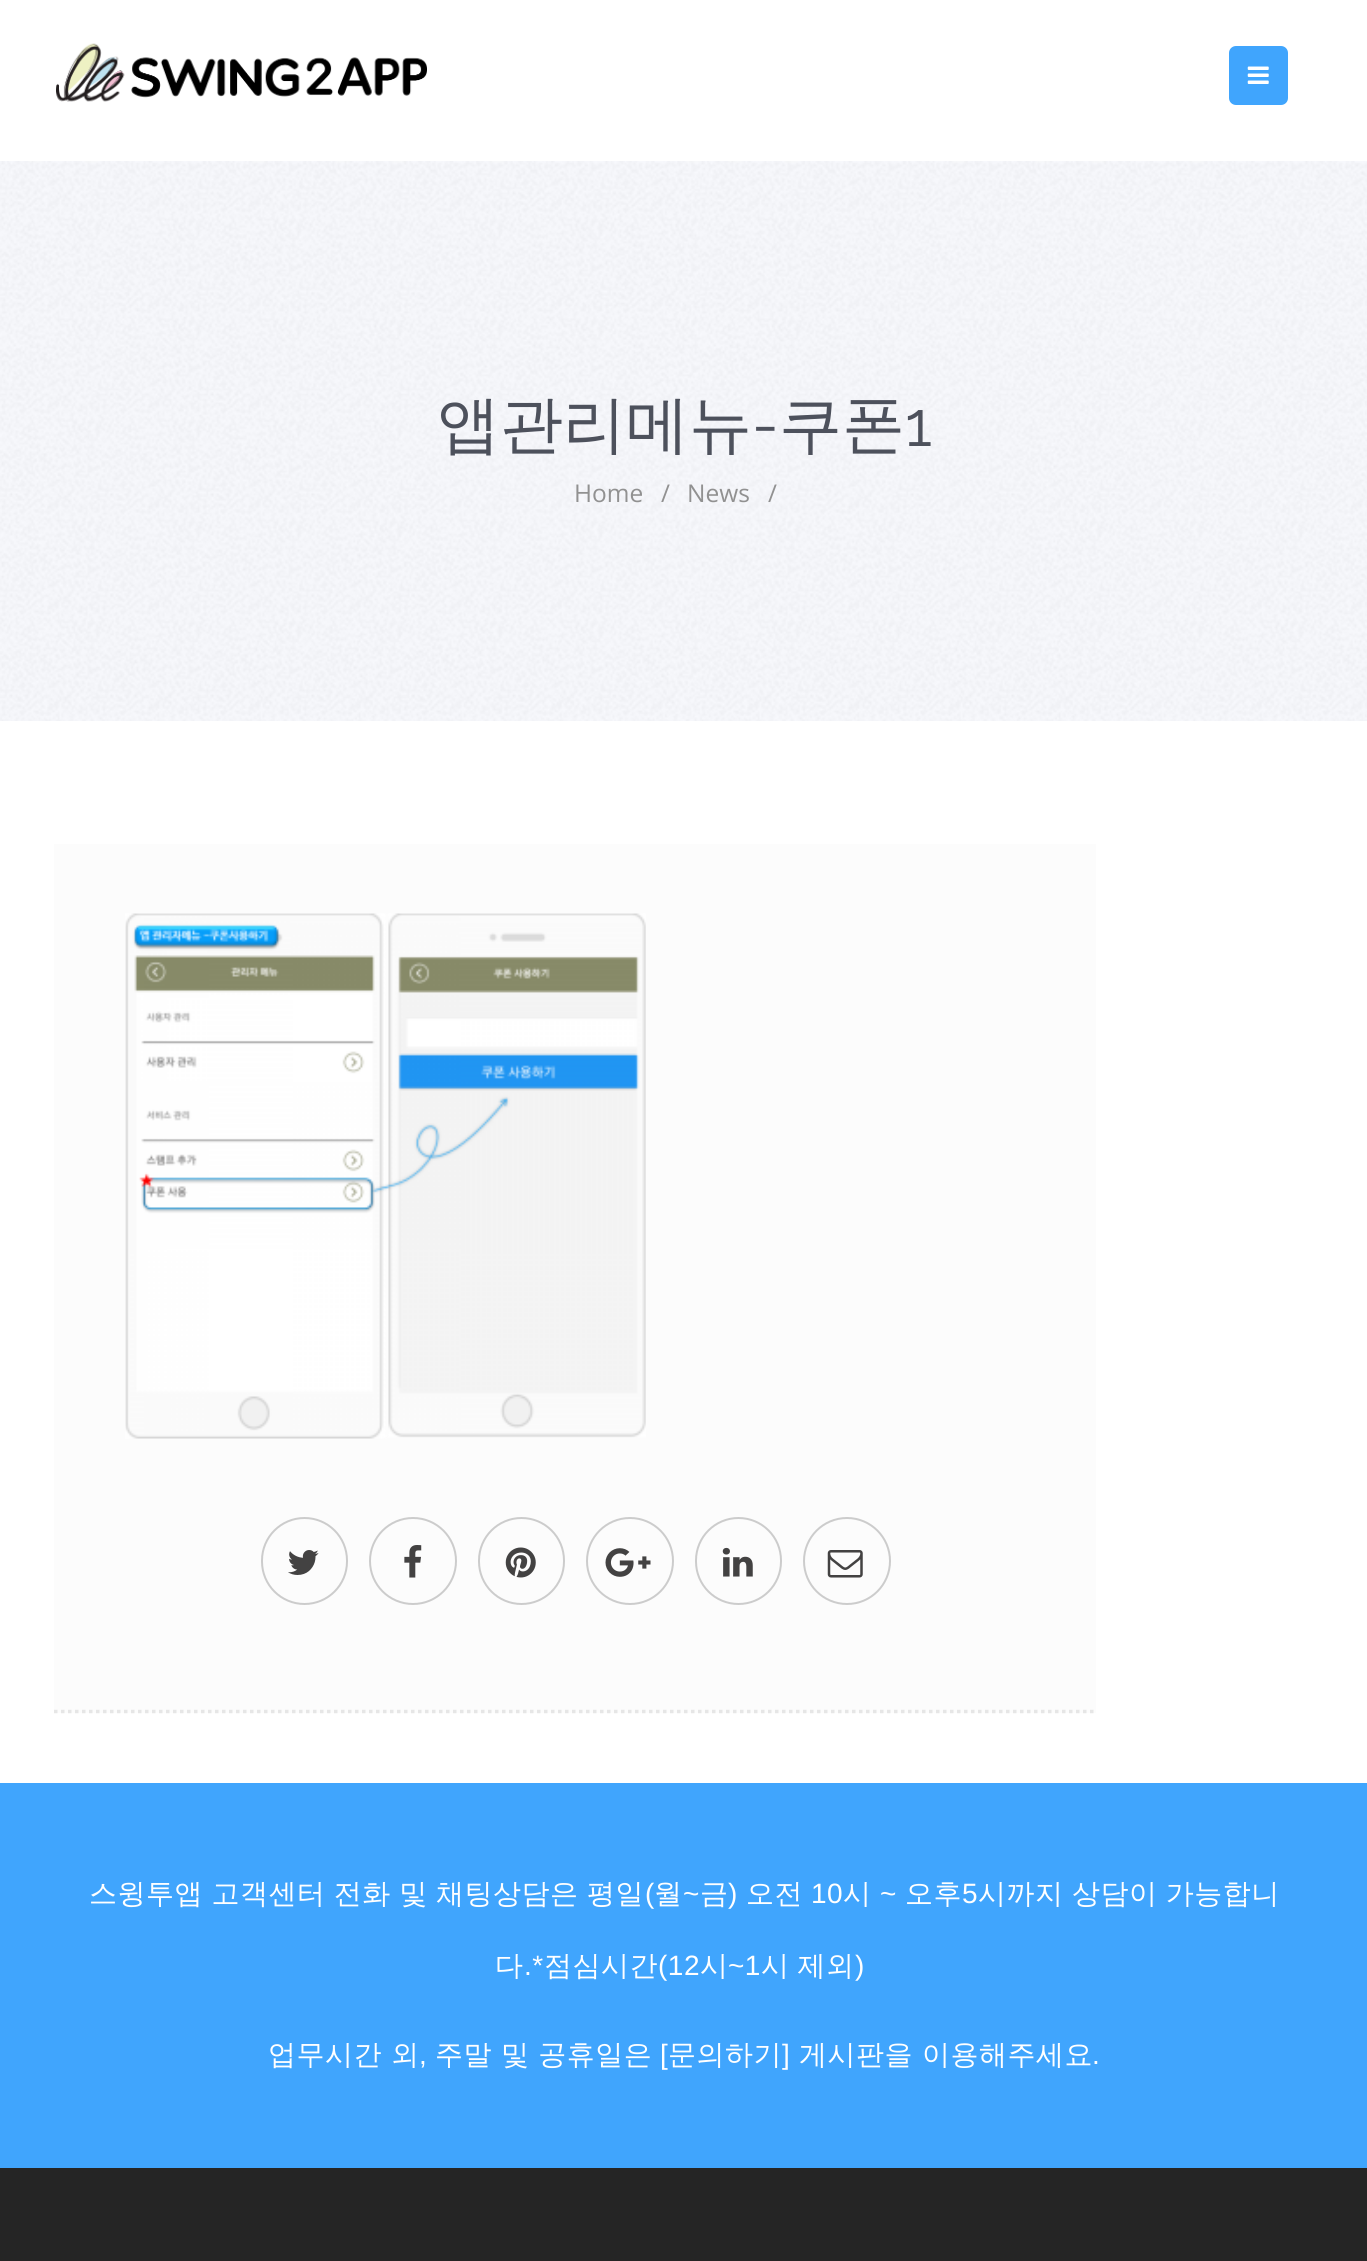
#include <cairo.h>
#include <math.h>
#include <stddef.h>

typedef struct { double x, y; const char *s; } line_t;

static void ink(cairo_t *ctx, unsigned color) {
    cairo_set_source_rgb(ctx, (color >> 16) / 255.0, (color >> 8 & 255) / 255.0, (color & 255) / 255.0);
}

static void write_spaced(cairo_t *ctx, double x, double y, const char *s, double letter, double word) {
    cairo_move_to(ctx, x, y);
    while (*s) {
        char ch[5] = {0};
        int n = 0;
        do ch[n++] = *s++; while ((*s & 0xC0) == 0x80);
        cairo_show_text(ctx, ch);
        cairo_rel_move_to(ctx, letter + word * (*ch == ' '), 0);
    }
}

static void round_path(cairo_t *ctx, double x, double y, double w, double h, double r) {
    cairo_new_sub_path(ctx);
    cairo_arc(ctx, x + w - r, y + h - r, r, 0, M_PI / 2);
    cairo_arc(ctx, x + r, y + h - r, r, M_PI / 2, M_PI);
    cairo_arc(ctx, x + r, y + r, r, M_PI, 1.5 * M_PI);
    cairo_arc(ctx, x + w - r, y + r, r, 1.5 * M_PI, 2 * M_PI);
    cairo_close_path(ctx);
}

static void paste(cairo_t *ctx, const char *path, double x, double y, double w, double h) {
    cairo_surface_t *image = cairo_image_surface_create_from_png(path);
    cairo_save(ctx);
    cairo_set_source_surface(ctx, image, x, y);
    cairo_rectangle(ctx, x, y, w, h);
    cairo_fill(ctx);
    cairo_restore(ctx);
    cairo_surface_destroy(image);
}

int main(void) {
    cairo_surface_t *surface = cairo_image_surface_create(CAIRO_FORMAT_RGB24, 1367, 2261);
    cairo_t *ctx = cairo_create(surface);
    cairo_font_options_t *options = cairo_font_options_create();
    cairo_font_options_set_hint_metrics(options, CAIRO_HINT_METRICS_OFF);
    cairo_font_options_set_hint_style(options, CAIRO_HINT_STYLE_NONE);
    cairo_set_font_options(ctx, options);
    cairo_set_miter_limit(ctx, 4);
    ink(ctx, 0xFFFFFF);
    cairo_paint(ctx);
    paste(ctx, "media/1.png", 56, 43, 371, 59);
    ink(ctx, 0x40A5FD);
    round_path(ctx, 1230, 47, 57, 57, 6);
    cairo_fill_preserve(ctx);
    cairo_stroke(ctx);
    paste(ctx, "media/2.png", 1247, 66, 22, 18);
    paste(ctx, "media/3.png", 0, 161, 1367, 560);
    cairo_select_font_face(ctx, "WenQuanYi Zen Hei Medium", CAIRO_FONT_SLANT_NORMAL, CAIRO_FONT_WEIGHT_NORMAL);
    cairo_set_font_size(ctx, 63);
    ink(ctx, 0x4D515C);
    cairo_move_to(ctx, 437, 446);
    cairo_show_text(ctx, "앱관리메뉴");
    cairo_select_font_face(ctx, "Raleway", CAIRO_FONT_SLANT_NORMAL, CAIRO_FONT_WEIGHT_NORMAL);
    cairo_move_to(ctx, 752, 446);
    cairo_show_text(ctx, "-");
    cairo_select_font_face(ctx, "WenQuanYi Zen Hei Medium", CAIRO_FONT_SLANT_NORMAL, CAIRO_FONT_WEIGHT_NORMAL);
    cairo_move_to(ctx, 779, 446);
    cairo_show_text(ctx, "쿠폰");
    cairo_select_font_face(ctx, "Raleway", CAIRO_FONT_SLANT_NORMAL, CAIRO_FONT_WEIGHT_NORMAL);
    cairo_move_to(ctx, 905, 446);
    cairo_show_text(ctx, "1");
    cairo_select_font_face(ctx, "Open Sans", CAIRO_FONT_SLANT_NORMAL, CAIRO_FONT_WEIGHT_NORMAL);
    cairo_set_font_size(ctx, 24.5);
    ink(ctx, 0x919191);
    {
        static const line_t items[] = {
            {574, 502, "Home"},
            {661, 502, "/"},
            {687, 502, "News"},
            {768, 502, "/"},
        };
        for (size_t i = 0; i < sizeof items / sizeof *items; i++) {
            cairo_move_to(ctx, items[i].x, items[i].y);
            cairo_show_text(ctx, items[i].s);
        }
    }
    ink(ctx, 0xFCFCFC);
    cairo_rectangle(ctx, 54, 844, 1042, 869);
    cairo_fill(ctx);
    cairo_new_path(ctx);
    cairo_move_to(ctx, 54, 1711.5);
    cairo_line_to(ctx, 1095.5, 1711.5);
    ink(ctx, 0xE6E6E6);
    cairo_set_line_width(ctx, 3.5);
    cairo_set_dash(ctx, (double[]){3.5, 3.5}, 2, 0);
    cairo_stroke(ctx);
    paste(ctx, "media/4.png", 125, 913, 521, 526);
    round_path(ctx, 262, 1518, 85, 86, 42.5);
    ink(ctx, 0xCCCCCC);
    cairo_set_line_width(ctx, 2);
    cairo_set_dash(ctx, NULL, 0, 0);
    cairo_stroke(ctx);
    paste(ctx, "media/5.png", 288, 1550, 31, 25);
    cairo_arc(ctx, 413, 1561, 43, 0, 2 * M_PI);
    cairo_stroke(ctx);
    paste(ctx, "media/6.png", 404, 1545, 18, 33);
    round_path(ctx, 479, 1518, 85, 86, 42.5);
    cairo_stroke(ctx);
    paste(ctx, "media/7.png", 505, 1547, 31, 31);
    cairo_arc(ctx, 630, 1561, 43, 0, 2 * M_PI);
    cairo_stroke(ctx);
    paste(ctx, "media/8.png", 605, 1548, 46, 29);
    round_path(ctx, 696, 1518, 85, 86, 42.5);
    cairo_stroke(ctx);
    paste(ctx, "media/9.png", 722, 1547, 31, 30);
    cairo_arc(ctx, 847, 1561, 43, 0, 2 * M_PI);
    cairo_stroke(ctx);
    paste(ctx, "media/10.png", 827, 1550, 36, 28);
    ink(ctx, 0x40A5FD);
    cairo_rectangle(ctx, 0, 1783, 1367, 385);
    cairo_fill(ctx);
    cairo_select_font_face(ctx, "WenQuanYi Zen Hei Medium", CAIRO_FONT_SLANT_NORMAL, CAIRO_FONT_WEIGHT_NORMAL);
    cairo_set_font_size(ctx, 28);
    ink(ctx, 0xFFFFFF);
    write_spaced(ctx, 89, 1903, "스윙투앱 고객센터 전화 및 채팅상담은 평일", 0.5, -0.5);
    cairo_select_font_face(ctx, "Liberation Sans", CAIRO_FONT_SLANT_NORMAL, CAIRO_FONT_WEIGHT_NORMAL);
    write_spaced(ctx, 645, 1903, "(", 0.5, 0);
    cairo_select_font_face(ctx, "WenQuanYi Zen Hei Medium", CAIRO_FONT_SLANT_NORMAL, CAIRO_FONT_WEIGHT_NORMAL);
    write_spaced(ctx, 654, 1903, "월", 0.5, 0);
    cairo_select_font_face(ctx, "Liberation Sans", CAIRO_FONT_SLANT_NORMAL, CAIRO_FONT_WEIGHT_NORMAL);
    write_spaced(ctx, 683, 1903, "~", 0.5, 0);
    cairo_select_font_face(ctx, "WenQuanYi Zen Hei Medium", CAIRO_FONT_SLANT_NORMAL, CAIRO_FONT_WEIGHT_NORMAL);
    write_spaced(ctx, 700, 1903, "금", 0.5, 0);
    cairo_select_font_face(ctx, "Liberation Sans", CAIRO_FONT_SLANT_NORMAL, CAIRO_FONT_WEIGHT_NORMAL);
    write_spaced(ctx, 728, 1903, ")", 0.5, 0);
    cairo_select_font_face(ctx, "WenQuanYi Zen Hei Medium", CAIRO_FONT_SLANT_NORMAL, CAIRO_FONT_WEIGHT_NORMAL);
    write_spaced(ctx, 746, 1903, "오전", 0.5, 0);
    cairo_select_font_face(ctx, "Liberation Sans", CAIRO_FONT_SLANT_NORMAL, CAIRO_FONT_WEIGHT_NORMAL);
    write_spaced(ctx, 811, 1903, "10", 0.5, 0);
    cairo_select_font_face(ctx, "WenQuanYi Zen Hei Medium", CAIRO_FONT_SLANT_NORMAL, CAIRO_FONT_WEIGHT_NORMAL);
    write_spaced(ctx, 843, 1903, "시", 0.5, 0);
    cairo_select_font_face(ctx, "Liberation Sans", CAIRO_FONT_SLANT_NORMAL, CAIRO_FONT_WEIGHT_NORMAL);
    write_spaced(ctx, 880, 1903, "~", 0.5, 0);
    cairo_select_font_face(ctx, "WenQuanYi Zen Hei Medium", CAIRO_FONT_SLANT_NORMAL, CAIRO_FONT_WEIGHT_NORMAL);
    write_spaced(ctx, 905, 1903, "오후", 0.5, 0);
    cairo_select_font_face(ctx, "Liberation Sans", CAIRO_FONT_SLANT_NORMAL, CAIRO_FONT_WEIGHT_NORMAL);
    write_spaced(ctx, 962, 1903, "5", 0.5, 0);
    cairo_select_font_face(ctx, "WenQuanYi Zen Hei Medium", CAIRO_FONT_SLANT_NORMAL, CAIRO_FONT_WEIGHT_NORMAL);
    write_spaced(ctx, 978, 1903, "시까지 상담이 가능합니", 0.5, -0.5);
    write_spaced(ctx, 495, 1975, "다", 0.5, 0);
    cairo_select_font_face(ctx, "Liberation Sans", CAIRO_FONT_SLANT_NORMAL, CAIRO_FONT_WEIGHT_NORMAL);
    write_spaced(ctx, 524, 1975, ".*", 0.5, 0);
    cairo_select_font_face(ctx, "WenQuanYi Zen Hei Medium", CAIRO_FONT_SLANT_NORMAL, CAIRO_FONT_WEIGHT_NORMAL);
    write_spaced(ctx, 544, 1975, "점심시간", 0.5, 0);
    cairo_select_font_face(ctx, "Liberation Sans", CAIRO_FONT_SLANT_NORMAL, CAIRO_FONT_WEIGHT_NORMAL);
    write_spaced(ctx, 658, 1975, "(12", 0.5, 0);
    cairo_select_font_face(ctx, "WenQuanYi Zen Hei Medium", CAIRO_FONT_SLANT_NORMAL, CAIRO_FONT_WEIGHT_NORMAL);
    write_spaced(ctx, 700, 1975, "시", 0.5, 0);
    cairo_select_font_face(ctx, "Liberation Sans", CAIRO_FONT_SLANT_NORMAL, CAIRO_FONT_WEIGHT_NORMAL);
    write_spaced(ctx, 728, 1975, "~1", 0.5, 0);
    cairo_select_font_face(ctx, "WenQuanYi Zen Hei Medium", CAIRO_FONT_SLANT_NORMAL, CAIRO_FONT_WEIGHT_NORMAL);
    write_spaced(ctx, 761, 1975, "시 제외", 0.5, -1);
    cairo_select_font_face(ctx, "Liberation Sans", CAIRO_FONT_SLANT_NORMAL, CAIRO_FONT_WEIGHT_NORMAL);
    write_spaced(ctx, 855, 1975, ")", 0.5, 0);
    cairo_select_font_face(ctx, "WenQuanYi Zen Hei Medium", CAIRO_FONT_SLANT_NORMAL, CAIRO_FONT_WEIGHT_NORMAL);
    write_spaced(ctx, 268, 2064, "업무시간 외", 0.5, 0);
    cairo_select_font_face(ctx, "Liberation Sans", CAIRO_FONT_SLANT_NORMAL, CAIRO_FONT_WEIGHT_NORMAL);
    write_spaced(ctx, 419, 2064, ",", 0.5, 0);
    cairo_select_font_face(ctx, "WenQuanYi Zen Hei Medium", CAIRO_FONT_SLANT_NORMAL, CAIRO_FONT_WEIGHT_NORMAL);
    write_spaced(ctx, 435, 2064, "주말 및 공휴일은", 0.5, 0);
    cairo_select_font_face(ctx, "Liberation Sans", CAIRO_FONT_SLANT_NORMAL, CAIRO_FONT_WEIGHT_NORMAL);
    write_spaced(ctx, 660, 2064, "[", 0.5, 0);
    cairo_select_font_face(ctx, "WenQuanYi Zen Hei Medium", CAIRO_FONT_SLANT_NORMAL, CAIRO_FONT_WEIGHT_NORMAL);
    write_spaced(ctx, 668, 2064, "문의하기", 0.5, 0);
    cairo_select_font_face(ctx, "Liberation Sans", CAIRO_FONT_SLANT_NORMAL, CAIRO_FONT_WEIGHT_NORMAL);
    write_spaced(ctx, 782, 2064, "]", 0.5, 0);
    cairo_select_font_face(ctx, "WenQuanYi Zen Hei Medium", CAIRO_FONT_SLANT_NORMAL, CAIRO_FONT_WEIGHT_NORMAL);
    write_spaced(ctx, 799, 2064, "게시판을 이용해주세요", 0.5, 0);
    cairo_select_font_face(ctx, "Liberation Sans", CAIRO_FONT_SLANT_NORMAL, CAIRO_FONT_WEIGHT_NORMAL);
    write_spaced(ctx, 1092, 2064, ".", 0.5, 0);
    ink(ctx, 0x252525);
    cairo_rectangle(ctx, 0, 2168, 1367, 93);
    cairo_fill(ctx);
    cairo_surface_write_to_png(surface, "image.png");
    cairo_font_options_destroy(options);
    cairo_destroy(ctx);
    cairo_surface_destroy(surface);
    return 0;
}
